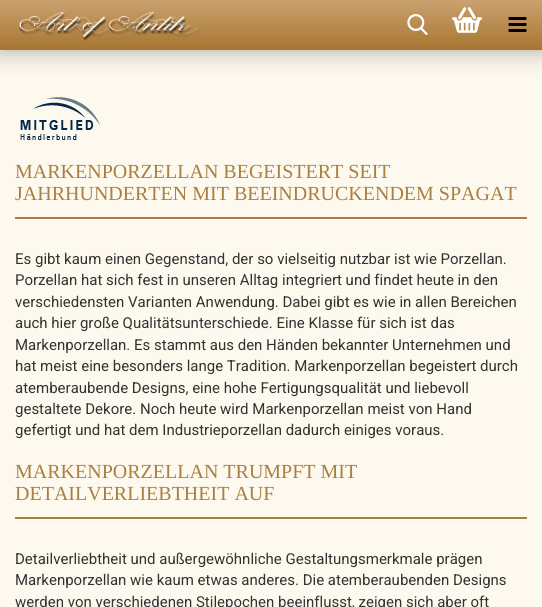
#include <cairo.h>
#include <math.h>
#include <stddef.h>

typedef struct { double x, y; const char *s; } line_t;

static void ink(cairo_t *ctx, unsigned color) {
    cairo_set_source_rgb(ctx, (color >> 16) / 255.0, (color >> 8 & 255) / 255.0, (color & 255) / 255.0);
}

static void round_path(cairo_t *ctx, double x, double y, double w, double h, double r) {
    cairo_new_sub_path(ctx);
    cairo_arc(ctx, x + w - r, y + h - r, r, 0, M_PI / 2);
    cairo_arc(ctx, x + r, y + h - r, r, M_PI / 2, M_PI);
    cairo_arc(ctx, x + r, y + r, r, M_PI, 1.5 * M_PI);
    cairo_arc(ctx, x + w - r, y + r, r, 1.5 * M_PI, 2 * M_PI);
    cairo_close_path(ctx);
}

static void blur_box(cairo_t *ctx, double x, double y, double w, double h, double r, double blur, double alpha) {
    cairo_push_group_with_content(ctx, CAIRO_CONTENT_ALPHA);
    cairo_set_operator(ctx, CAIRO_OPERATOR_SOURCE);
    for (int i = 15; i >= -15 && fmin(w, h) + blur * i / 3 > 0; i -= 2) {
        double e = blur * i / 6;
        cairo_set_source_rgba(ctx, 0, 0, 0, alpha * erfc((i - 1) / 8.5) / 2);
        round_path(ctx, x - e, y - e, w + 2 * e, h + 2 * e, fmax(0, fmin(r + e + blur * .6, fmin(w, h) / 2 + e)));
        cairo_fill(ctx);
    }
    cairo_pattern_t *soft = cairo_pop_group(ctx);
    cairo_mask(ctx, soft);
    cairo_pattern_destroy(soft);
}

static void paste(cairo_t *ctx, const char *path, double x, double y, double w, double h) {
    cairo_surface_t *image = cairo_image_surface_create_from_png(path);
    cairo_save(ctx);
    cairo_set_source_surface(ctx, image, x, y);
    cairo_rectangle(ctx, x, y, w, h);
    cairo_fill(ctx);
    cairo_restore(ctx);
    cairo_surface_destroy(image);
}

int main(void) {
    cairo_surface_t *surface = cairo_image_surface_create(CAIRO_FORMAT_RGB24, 542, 607);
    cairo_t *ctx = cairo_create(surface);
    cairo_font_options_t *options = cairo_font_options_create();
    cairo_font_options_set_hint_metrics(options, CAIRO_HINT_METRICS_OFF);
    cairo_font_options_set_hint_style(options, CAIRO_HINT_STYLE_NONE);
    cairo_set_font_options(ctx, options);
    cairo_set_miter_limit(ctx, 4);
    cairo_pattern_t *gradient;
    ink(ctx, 0xFDF9EE);
    cairo_paint(ctx);
    ink(ctx, 0x000000);
    blur_box(ctx, 0, 0, 542, 50, 0, 12.5, 0.35);
    gradient = cairo_pattern_create_linear(271, 0, 271, 50);
    cairo_pattern_add_color_stop_rgba(gradient, 0, 0.792, 0.635, 0.435, 1);
    cairo_pattern_add_color_stop_rgba(gradient, 1, 0.655, 0.459, 0.188, 1);
    cairo_set_source(ctx, gradient);
    cairo_pattern_destroy(gradient);
    cairo_rectangle(ctx, 0, 0, 542, 50);
    cairo_fill(ctx);
    paste(ctx, "media/1.png", 19, 12, 179, 29);
    paste(ctx, "media/2.png", 407, 14, 21, 21);
    paste(ctx, "media/3.png", 452, 7, 30, 26);
    paste(ctx, "media/4.png", 508, 17, 19, 15);
    paste(ctx, "media/5.png", 20, 97, 80, 43);
    ink(ctx, 0xA98042);
    cairo_rectangle(ctx, 15, 217, 512, 2);
    cairo_fill(ctx);
    cairo_select_font_face(ctx, "Liberation Serif", CAIRO_FONT_SLANT_NORMAL, CAIRO_FONT_WEIGHT_NORMAL);
    cairo_set_font_size(ctx, 20);
    cairo_move_to(ctx, 15, 178);
    cairo_show_text(ctx, "MARKENPORZELLAN BEGEISTERT SEIT");
    cairo_move_to(ctx, 15, 200);
    cairo_show_text(ctx, "JAHRHUNDERTEN MIT BEEINDRUCKENDEM SPAGAT");
    cairo_select_font_face(ctx, "Roboto", CAIRO_FONT_SLANT_NORMAL, CAIRO_FONT_WEIGHT_NORMAL);
    cairo_set_font_size(ctx, 15);
    ink(ctx, 0x333333);
    {
        static const line_t items[] = {
            {15, 264, "Es gibt kaum einen Gegenstand, der so vielseitig nutzbar ist wie Porzellan."},
            {15, 285, "Porzellan hat sich fest in unseren Alltag integriert und findet heute in den"},
            {15, 307, "verschiedensten Varianten Anwendung. Dabei gibt es wie in allen Bereichen"},
            {15, 328, "auch hier große Qualitätsunterschiede. Eine Klasse für sich ist das"},
            {15, 350, "Markenporzellan. Es stammt aus den Händen bekannter Unternehmen und"},
            {15, 371, "hat meist eine besonders lange Tradition. Markenporzellan begeistert durch"},
            {15, 393, "atemberaubende Designs, eine hohe Fertigungsqualität und liebevoll"},
            {15, 414, "gestaltete Dekore. Noch heute wird Markenporzellan meist von Hand"},
            {15, 435, "gefertigt und hat dem Industrieporzellan dadurch einiges voraus."},
        };
        for (size_t i = 0; i < sizeof items / sizeof *items; i++) {
            cairo_move_to(ctx, items[i].x, items[i].y);
            cairo_show_text(ctx, items[i].s);
        }
    }
    ink(ctx, 0xA98042);
    cairo_rectangle(ctx, 15, 517, 512, 2);
    cairo_fill(ctx);
    cairo_select_font_face(ctx, "Liberation Serif", CAIRO_FONT_SLANT_NORMAL, CAIRO_FONT_WEIGHT_NORMAL);
    cairo_set_font_size(ctx, 20);
    cairo_move_to(ctx, 15, 478);
    cairo_show_text(ctx, "MARKENPORZELLAN TRUMPFT MIT");
    cairo_move_to(ctx, 15, 500);
    cairo_show_text(ctx, "DETAILVERLIEBTHEIT AUF");
    cairo_select_font_face(ctx, "Roboto", CAIRO_FONT_SLANT_NORMAL, CAIRO_FONT_WEIGHT_NORMAL);
    cairo_set_font_size(ctx, 15);
    ink(ctx, 0x333333);
    {
        static const line_t items[] = {
            {15, 564, "Detailverliebtheit und außergewöhnliche Gestaltungsmerkmale prägen"},
            {15, 585, "Markenporzellan wie kaum etwas anderes. Die atemberaubenden Designs"},
            {15, 607, "werden von verschiedenen Stilepochen beeinflusst, zeigen sich aber oft"},
        };
        for (size_t i = 0; i < sizeof items / sizeof *items; i++) {
            cairo_move_to(ctx, items[i].x, items[i].y);
            cairo_show_text(ctx, items[i].s);
        }
    }
    cairo_surface_write_to_png(surface, "image.png");
    cairo_font_options_destroy(options);
    cairo_destroy(ctx);
    cairo_surface_destroy(surface);
    return 0;
}
